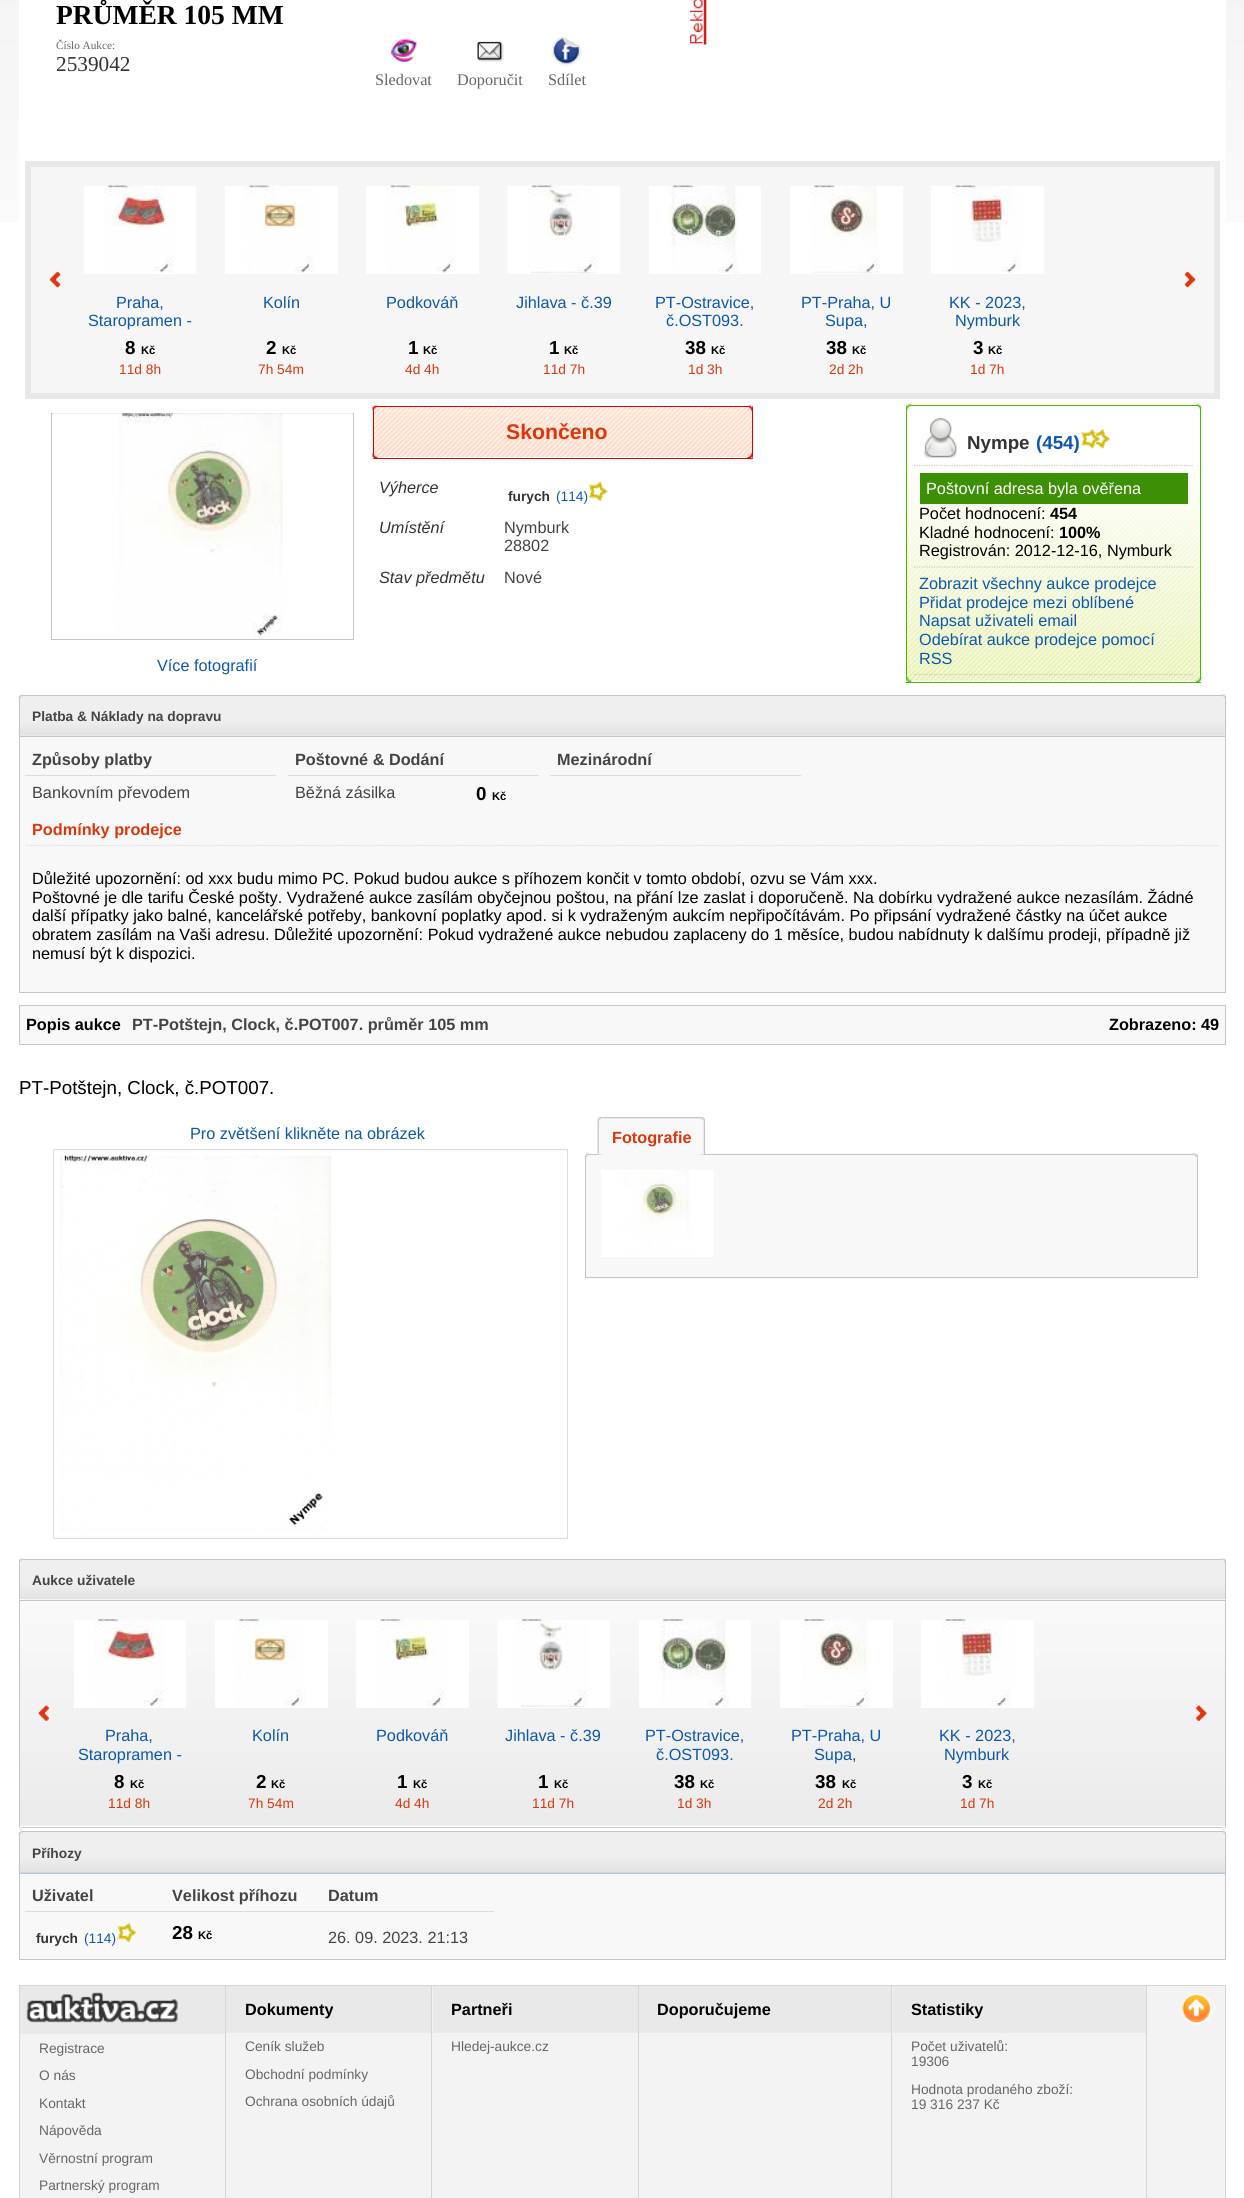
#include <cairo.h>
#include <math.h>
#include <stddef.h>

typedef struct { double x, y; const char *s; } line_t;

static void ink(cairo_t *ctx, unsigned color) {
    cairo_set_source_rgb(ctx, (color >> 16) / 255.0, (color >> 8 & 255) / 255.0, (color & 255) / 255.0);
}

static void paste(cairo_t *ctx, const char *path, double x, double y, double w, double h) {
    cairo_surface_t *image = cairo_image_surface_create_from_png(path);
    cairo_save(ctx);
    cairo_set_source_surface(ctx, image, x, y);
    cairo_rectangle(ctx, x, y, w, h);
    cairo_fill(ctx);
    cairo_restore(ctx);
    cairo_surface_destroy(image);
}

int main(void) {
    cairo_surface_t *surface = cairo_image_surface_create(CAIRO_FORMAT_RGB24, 1244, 2198);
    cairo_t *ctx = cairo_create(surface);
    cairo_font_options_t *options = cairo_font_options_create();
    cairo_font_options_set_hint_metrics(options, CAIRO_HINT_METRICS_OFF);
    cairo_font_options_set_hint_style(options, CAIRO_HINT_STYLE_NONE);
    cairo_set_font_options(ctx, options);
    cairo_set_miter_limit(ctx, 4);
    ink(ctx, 0xFFFFFF);
    cairo_paint(ctx);
    paste(ctx, "media/1.png", 0, 0, 1244, 222);
    ink(ctx, 0xFFFFFF);
    cairo_rectangle(ctx, 19, 0, 1207, 222);
    cairo_fill(ctx);
    cairo_select_font_face(ctx, "Liberation Serif", CAIRO_FONT_SLANT_NORMAL, CAIRO_FONT_WEIGHT_BOLD);
    cairo_set_font_size(ctx, 27.5);
    ink(ctx, 0x000000);
    cairo_move_to(ctx, 56, 24);
    cairo_show_text(ctx, "PRŮMĚR 105 MM");
    cairo_select_font_face(ctx, "Liberation Serif", CAIRO_FONT_SLANT_NORMAL, CAIRO_FONT_WEIGHT_NORMAL);
    cairo_set_font_size(ctx, 11.25);
    ink(ctx, 0x666666);
    cairo_move_to(ctx, 56, 49);
    cairo_show_text(ctx, "Číslo Aukce:");
    cairo_set_font_size(ctx, 21.25);
    ink(ctx, 0x333333);
    cairo_move_to(ctx, 56, 71);
    cairo_show_text(ctx, "2539042");
    paste(ctx, "media/2.png", 390, 39, 28, 24);
    cairo_set_font_size(ctx, 16.25);
    ink(ctx, 0x666666);
    cairo_move_to(ctx, 375, 85);
    cairo_show_text(ctx, "Sledovat");
    paste(ctx, "media/3.png", 477, 41, 27, 21);
    cairo_move_to(ctx, 457, 85);
    cairo_show_text(ctx, "Doporučit");
    paste(ctx, "media/4.png", 551, 36, 31, 30);
    cairo_move_to(ctx, 548, 85);
    cairo_show_text(ctx, "Sdílet");
    paste(ctx, "media/5.png", 689, 0, 18, 45);
    ink(ctx, 0xF6F6F6);
    cairo_rectangle(ctx, 28, 164, 1189, 232);
    cairo_fill_preserve(ctx);
    ink(ctx, 0xE8E8E8);
    cairo_set_line_width(ctx, 6);
    cairo_stroke(ctx);
    paste(ctx, "media/6.png", 49, 271, 12, 17);
    paste(ctx, "media/7.png", 1184, 271, 12, 17);
    ink(ctx, 0xFFFFFF);
    cairo_rectangle(ctx, 84, 186, 112, 88);
    cairo_fill(ctx);
    paste(ctx, "media/8.png", 104, 185, 70, 88);
    paste(ctx, "media/9.png", 108, 185, 20, 1);
    cairo_select_font_face(ctx, "Liberation Sans", CAIRO_FONT_SLANT_NORMAL, CAIRO_FONT_WEIGHT_NORMAL);
    ink(ctx, 0x0D58AC);
    cairo_move_to(ctx, 116, 308);
    cairo_show_text(ctx, "Praha,");
    cairo_move_to(ctx, 88, 326);
    cairo_show_text(ctx, "Staropramen -");
    cairo_select_font_face(ctx, "Liberation Sans", CAIRO_FONT_SLANT_NORMAL, CAIRO_FONT_WEIGHT_BOLD);
    cairo_set_font_size(ctx, 18.75);
    ink(ctx, 0x000000);
    cairo_move_to(ctx, 125, 354);
    cairo_show_text(ctx, "8");
    cairo_set_font_size(ctx, 11.25);
    cairo_move_to(ctx, 141, 354);
    cairo_show_text(ctx, "Kč");
    cairo_select_font_face(ctx, "Liberation Sans", CAIRO_FONT_SLANT_NORMAL, CAIRO_FONT_WEIGHT_NORMAL);
    cairo_set_font_size(ctx, 13.75);
    ink(ctx, 0xDA370C);
    cairo_move_to(ctx, 119, 374);
    cairo_show_text(ctx, "11d 8h");
    ink(ctx, 0xFFFFFF);
    cairo_rectangle(ctx, 225, 186, 113, 88);
    cairo_fill(ctx);
    paste(ctx, "media/10.png", 245, 185, 70, 88);
    paste(ctx, "media/11.png", 249, 185, 20, 1);
    cairo_set_font_size(ctx, 16.25);
    ink(ctx, 0x0D58AC);
    cairo_move_to(ctx, 263, 308);
    cairo_show_text(ctx, "Kolín");
    cairo_select_font_face(ctx, "Liberation Sans", CAIRO_FONT_SLANT_NORMAL, CAIRO_FONT_WEIGHT_BOLD);
    cairo_set_font_size(ctx, 18.75);
    ink(ctx, 0x000000);
    cairo_move_to(ctx, 266, 354);
    cairo_show_text(ctx, "2");
    cairo_set_font_size(ctx, 11.25);
    cairo_move_to(ctx, 282, 354);
    cairo_show_text(ctx, "Kč");
    cairo_select_font_face(ctx, "Liberation Sans", CAIRO_FONT_SLANT_NORMAL, CAIRO_FONT_WEIGHT_NORMAL);
    cairo_set_font_size(ctx, 13.75);
    ink(ctx, 0xDA370C);
    cairo_move_to(ctx, 258, 374);
    cairo_show_text(ctx, "7h 54m");
    ink(ctx, 0xFFFFFF);
    cairo_rectangle(ctx, 366, 186, 113, 88);
    cairo_fill(ctx);
    paste(ctx, "media/12.png", 386, 185, 70, 88);
    paste(ctx, "media/13.png", 390, 185, 20, 1);
    cairo_set_font_size(ctx, 16.25);
    ink(ctx, 0x0D58AC);
    cairo_move_to(ctx, 386, 308);
    cairo_show_text(ctx, "Podkováň");
    cairo_select_font_face(ctx, "Liberation Sans", CAIRO_FONT_SLANT_NORMAL, CAIRO_FONT_WEIGHT_BOLD);
    cairo_set_font_size(ctx, 18.75);
    ink(ctx, 0x000000);
    cairo_move_to(ctx, 408, 354);
    cairo_show_text(ctx, "1");
    cairo_set_font_size(ctx, 11.25);
    cairo_move_to(ctx, 423, 354);
    cairo_show_text(ctx, "Kč");
    cairo_select_font_face(ctx, "Liberation Sans", CAIRO_FONT_SLANT_NORMAL, CAIRO_FONT_WEIGHT_NORMAL);
    cairo_set_font_size(ctx, 13.75);
    ink(ctx, 0xDA370C);
    cairo_move_to(ctx, 405, 374);
    cairo_show_text(ctx, "4d 4h");
    ink(ctx, 0xFFFFFF);
    cairo_rectangle(ctx, 508, 186, 112, 88);
    cairo_fill(ctx);
    paste(ctx, "media/14.png", 507, 185, 91, 89);
    paste(ctx, "media/15.png", 532, 185, 52, 89);
    cairo_set_font_size(ctx, 16.25);
    ink(ctx, 0x0D58AC);
    cairo_move_to(ctx, 516, 308);
    cairo_show_text(ctx, "Jihlava - č.39");
    cairo_select_font_face(ctx, "Liberation Sans", CAIRO_FONT_SLANT_NORMAL, CAIRO_FONT_WEIGHT_BOLD);
    cairo_set_font_size(ctx, 18.75);
    ink(ctx, 0x000000);
    cairo_move_to(ctx, 549, 354);
    cairo_show_text(ctx, "1");
    cairo_set_font_size(ctx, 11.25);
    cairo_move_to(ctx, 564, 354);
    cairo_show_text(ctx, "Kč");
    cairo_select_font_face(ctx, "Liberation Sans", CAIRO_FONT_SLANT_NORMAL, CAIRO_FONT_WEIGHT_NORMAL);
    cairo_set_font_size(ctx, 13.75);
    ink(ctx, 0xDA370C);
    cairo_move_to(ctx, 543, 374);
    cairo_show_text(ctx, "11d 7h");
    ink(ctx, 0xFFFFFF);
    cairo_rectangle(ctx, 649, 186, 112, 88);
    cairo_fill(ctx);
    paste(ctx, "media/16.png", 668, 185, 71, 88);
    paste(ctx, "media/17.png", 673, 185, 20, 1);
    cairo_set_font_size(ctx, 16.25);
    ink(ctx, 0x0D58AC);
    cairo_move_to(ctx, 655, 308);
    cairo_show_text(ctx, "PT-Ostravice,");
    cairo_move_to(ctx, 666, 326);
    cairo_show_text(ctx, "č.OST093.");
    cairo_select_font_face(ctx, "Liberation Sans", CAIRO_FONT_SLANT_NORMAL, CAIRO_FONT_WEIGHT_BOLD);
    cairo_set_font_size(ctx, 18.75);
    ink(ctx, 0x000000);
    cairo_move_to(ctx, 685, 354);
    cairo_show_text(ctx, "38");
    cairo_set_font_size(ctx, 11.25);
    cairo_move_to(ctx, 711, 354);
    cairo_show_text(ctx, "Kč");
    cairo_select_font_face(ctx, "Liberation Sans", CAIRO_FONT_SLANT_NORMAL, CAIRO_FONT_WEIGHT_NORMAL);
    cairo_set_font_size(ctx, 13.75);
    ink(ctx, 0xDA370C);
    cairo_move_to(ctx, 688, 374);
    cairo_show_text(ctx, "1d 3h");
    ink(ctx, 0xFFFFFF);
    cairo_rectangle(ctx, 790, 186, 113, 88);
    cairo_fill(ctx);
    paste(ctx, "media/18.png", 810, 185, 70, 89);
    paste(ctx, "media/19.png", 814, 185, 20, 1);
    cairo_set_font_size(ctx, 16.25);
    ink(ctx, 0x0D58AC);
    cairo_move_to(ctx, 801, 308);
    cairo_show_text(ctx, "PT-Praha, U");
    cairo_move_to(ctx, 825, 326);
    cairo_show_text(ctx, "Supa,");
    cairo_select_font_face(ctx, "Liberation Sans", CAIRO_FONT_SLANT_NORMAL, CAIRO_FONT_WEIGHT_BOLD);
    cairo_set_font_size(ctx, 18.75);
    ink(ctx, 0x000000);
    cairo_move_to(ctx, 826, 354);
    cairo_show_text(ctx, "38");
    cairo_set_font_size(ctx, 11.25);
    cairo_move_to(ctx, 852, 354);
    cairo_show_text(ctx, "Kč");
    cairo_select_font_face(ctx, "Liberation Sans", CAIRO_FONT_SLANT_NORMAL, CAIRO_FONT_WEIGHT_NORMAL);
    cairo_set_font_size(ctx, 13.75);
    ink(ctx, 0xDA370C);
    cairo_move_to(ctx, 829, 374);
    cairo_show_text(ctx, "2d 2h");
    ink(ctx, 0xFFFFFF);
    cairo_rectangle(ctx, 931, 186, 113, 88);
    cairo_fill(ctx);
    paste(ctx, "media/20.png", 952, 185, 69, 88);
    paste(ctx, "media/21.png", 955, 185, 21, 1);
    cairo_set_font_size(ctx, 16.25);
    ink(ctx, 0x0D58AC);
    cairo_move_to(ctx, 949, 308);
    cairo_show_text(ctx, "KK - 2023,");
    cairo_move_to(ctx, 955, 326);
    cairo_show_text(ctx, "Nymburk");
    cairo_select_font_face(ctx, "Liberation Sans", CAIRO_FONT_SLANT_NORMAL, CAIRO_FONT_WEIGHT_BOLD);
    cairo_set_font_size(ctx, 18.75);
    ink(ctx, 0x000000);
    cairo_move_to(ctx, 973, 354);
    cairo_show_text(ctx, "3");
    cairo_set_font_size(ctx, 11.25);
    cairo_move_to(ctx, 988, 354);
    cairo_show_text(ctx, "Kč");
    cairo_select_font_face(ctx, "Liberation Sans", CAIRO_FONT_SLANT_NORMAL, CAIRO_FONT_WEIGHT_NORMAL);
    cairo_set_font_size(ctx, 13.75);
    ink(ctx, 0xDA370C);
    cairo_move_to(ctx, 970, 374);
    cairo_show_text(ctx, "1d 7h");
    paste(ctx, "media/24.png", 372, 405, 381, 52);
    cairo_rectangle(ctx, 373.5, 406.5, 379, 52);
    ink(ctx, 0xD90303);
    cairo_set_line_width(ctx, 1);
    cairo_stroke(ctx);
    paste(ctx, "media/22.png", 372, 405, 6, 6);
    paste(ctx, "media/23.png", 747, 405, 6, 6);
    cairo_select_font_face(ctx, "Liberation Sans", CAIRO_FONT_SLANT_NORMAL, CAIRO_FONT_WEIGHT_BOLD);
    cairo_set_font_size(ctx, 21.25);
    ink(ctx, 0xDA370C);
    cairo_move_to(ctx, 506, 439);
    cairo_show_text(ctx, "Skončeno");
    paste(ctx, "media/25.png", 372, 453, 6, 6);
    paste(ctx, "media/26.png", 747, 453, 6, 6);
    cairo_select_font_face(ctx, "Liberation Sans", CAIRO_FONT_SLANT_ITALIC, CAIRO_FONT_WEIGHT_NORMAL);
    cairo_set_font_size(ctx, 16.25);
    ink(ctx, 0x333333);
    cairo_move_to(ctx, 379, 493);
    cairo_show_text(ctx, "Výherce");
    cairo_select_font_face(ctx, "Liberation Sans", CAIRO_FONT_SLANT_NORMAL, CAIRO_FONT_WEIGHT_BOLD);
    cairo_set_font_size(ctx, 13.75);
    cairo_move_to(ctx, 508, 501);
    cairo_show_text(ctx, "furych");
    cairo_select_font_face(ctx, "Liberation Sans", CAIRO_FONT_SLANT_NORMAL, CAIRO_FONT_WEIGHT_NORMAL);
    ink(ctx, 0x0D58AC);
    cairo_move_to(ctx, 556, 501);
    cairo_show_text(ctx, "(114)");
    paste(ctx, "media/27.png", 588, 481, 20, 20);
    cairo_select_font_face(ctx, "Liberation Sans", CAIRO_FONT_SLANT_ITALIC, CAIRO_FONT_WEIGHT_NORMAL);
    cairo_set_font_size(ctx, 16.25);
    ink(ctx, 0x333333);
    cairo_move_to(ctx, 379, 533);
    cairo_show_text(ctx, "Umístění");
    cairo_select_font_face(ctx, "Liberation Sans", CAIRO_FONT_SLANT_NORMAL, CAIRO_FONT_WEIGHT_NORMAL);
    ink(ctx, 0x444444);
    cairo_move_to(ctx, 504, 533);
    cairo_show_text(ctx, "Nymburk");
    cairo_move_to(ctx, 504, 551);
    cairo_show_text(ctx, "28802");
    cairo_select_font_face(ctx, "Liberation Sans", CAIRO_FONT_SLANT_ITALIC, CAIRO_FONT_WEIGHT_NORMAL);
    ink(ctx, 0x333333);
    cairo_move_to(ctx, 379, 583);
    cairo_show_text(ctx, "Stav předmětu");
    cairo_select_font_face(ctx, "Liberation Sans", CAIRO_FONT_SLANT_NORMAL, CAIRO_FONT_WEIGHT_NORMAL);
    ink(ctx, 0x444444);
    cairo_move_to(ctx, 504, 583);
    cairo_show_text(ctx, "Nové");
    cairo_rectangle(ctx, 51.5, 413.5, 302, 226);
    ink(ctx, 0xC5C5C5);
    cairo_stroke(ctx);
    paste(ctx, "media/28.png", 52, 413, 301, 226);
    ink(ctx, 0x0D58AC);
    cairo_move_to(ctx, 157, 671);
    cairo_show_text(ctx, "Více fotografií");
    paste(ctx, "media/31.png", 907, 465, 295, 216);
    cairo_rectangle(ctx, 906.5, 405.5, 294, 277);
    ink(ctx, 0x4BB704);
    cairo_stroke(ctx);
    paste(ctx, "media/29.png", 906, 404, 6, 6);
    paste(ctx, "media/30.png", 1196, 404, 6, 6);
    paste(ctx, "media/32.png", 923, 418, 34, 41);
    cairo_new_path(ctx);
    cairo_move_to(ctx, 914, 465.5);
    cairo_line_to(ctx, 1194, 465.5);
    ink(ctx, 0xCACACA);
    cairo_set_line_width(ctx, 1.2);
    cairo_set_dash(ctx, (double[]){1.25, 1.25}, 2, 0);
    cairo_stroke(ctx);
    cairo_select_font_face(ctx, "Liberation Sans", CAIRO_FONT_SLANT_NORMAL, CAIRO_FONT_WEIGHT_BOLD);
    cairo_set_font_size(ctx, 18.75);
    ink(ctx, 0x333333);
    cairo_move_to(ctx, 967, 449);
    cairo_show_text(ctx, "Nympe");
    ink(ctx, 0x0D58AC);
    cairo_move_to(ctx, 1036, 449);
    cairo_show_text(ctx, "(454)");
    paste(ctx, "media/33.png", 1081, 429, 30, 20);
    cairo_new_path(ctx);
    cairo_move_to(ctx, 914, 567);
    cairo_line_to(ctx, 1194, 567);
    ink(ctx, 0xCACACA);
    cairo_stroke(ctx);
    ink(ctx, 0x3D8F06);
    cairo_rectangle(ctx, 920, 473, 268, 31);
    cairo_fill(ctx);
    cairo_select_font_face(ctx, "Liberation Sans", CAIRO_FONT_SLANT_NORMAL, CAIRO_FONT_WEIGHT_NORMAL);
    cairo_set_font_size(ctx, 16.25);
    ink(ctx, 0xFFFFFF);
    cairo_move_to(ctx, 926, 494);
    cairo_show_text(ctx, "Poštovní adresa byla ověřena");
    ink(ctx, 0x000000);
    cairo_move_to(ctx, 919, 519);
    cairo_show_text(ctx, "Počet hodnocení:");
    cairo_select_font_face(ctx, "Liberation Sans", CAIRO_FONT_SLANT_NORMAL, CAIRO_FONT_WEIGHT_BOLD);
    cairo_move_to(ctx, 1050, 519);
    cairo_show_text(ctx, "454");
    cairo_select_font_face(ctx, "Liberation Sans", CAIRO_FONT_SLANT_NORMAL, CAIRO_FONT_WEIGHT_NORMAL);
    cairo_move_to(ctx, 919, 538);
    cairo_show_text(ctx, "Kladné hodnocení:");
    cairo_select_font_face(ctx, "Liberation Sans", CAIRO_FONT_SLANT_NORMAL, CAIRO_FONT_WEIGHT_BOLD);
    cairo_move_to(ctx, 1059, 538);
    cairo_show_text(ctx, "100%");
    cairo_select_font_face(ctx, "Liberation Sans", CAIRO_FONT_SLANT_NORMAL, CAIRO_FONT_WEIGHT_NORMAL);
    cairo_move_to(ctx, 919, 556);
    cairo_show_text(ctx, "Registrován: 2012-12-16, Nymburk");
    cairo_new_path(ctx);
    cairo_move_to(ctx, 914, 674.5);
    cairo_line_to(ctx, 1194, 674.5);
    ink(ctx, 0xCACACA);
    cairo_stroke(ctx);
    ink(ctx, 0x0D58AC);
    {
        static const line_t items[] = {
            {919, 589, "Zobrazit všechny aukce prodejce"},
            {919, 608, "Přidat prodejce mezi oblíbené"},
            {919, 626, "Napsat uživateli email"},
            {919, 645, "Odebírat aukce prodejce pomocí"},
            {919, 664, "RSS"},
        };
        for (size_t i = 0; i < sizeof items / sizeof *items; i++) {
            cairo_move_to(ctx, items[i].x, items[i].y);
            cairo_show_text(ctx, items[i].s);
        }
    }
    paste(ctx, "media/34.png", 906, 677, 6, 5);
    paste(ctx, "media/35.png", 1196, 677, 6, 5);
    paste(ctx, "media/38.png", 18, 695, 1209, 41);
    ink(ctx, 0xC5C5C5);
    cairo_rectangle(ctx, 19, 695, 1207, 1);
    cairo_fill(ctx);
    cairo_rectangle(ctx, 19, 695, 1, 41);
    cairo_fill(ctx);
    paste(ctx, "media/36.png", 18, 694, 5, 4);
    cairo_rectangle(ctx, 1225, 695, 1, 41);
    cairo_fill(ctx);
    paste(ctx, "media/37.png", 1222, 694, 5, 4);
    cairo_select_font_face(ctx, "Liberation Sans", CAIRO_FONT_SLANT_NORMAL, CAIRO_FONT_WEIGHT_BOLD);
    cairo_set_font_size(ctx, 13.75);
    ink(ctx, 0x444444);
    cairo_move_to(ctx, 32, 721);
    cairo_show_text(ctx, "Platba & Náklady na dopravu");
    ink(ctx, 0xF8F8F8);
    cairo_rectangle(ctx, 19.5, 736.5, 1206, 256);
    cairo_fill_preserve(ctx);
    ink(ctx, 0xC5C5C5);
    cairo_set_line_width(ctx, 1);
    cairo_set_dash(ctx, NULL, 0, 0);
    cairo_stroke(ctx);
    ink(ctx, 0xDCDCDC);
    cairo_rectangle(ctx, 25, 775, 251, 1);
    cairo_fill(ctx);
    cairo_set_font_size(ctx, 16.25);
    ink(ctx, 0x444444);
    cairo_move_to(ctx, 32, 765);
    cairo_show_text(ctx, "Způsoby platby");
    cairo_select_font_face(ctx, "Liberation Sans", CAIRO_FONT_SLANT_NORMAL, CAIRO_FONT_WEIGHT_NORMAL);
    cairo_move_to(ctx, 32, 798);
    cairo_show_text(ctx, "Bankovním převodem");
    ink(ctx, 0xDCDCDC);
    cairo_rectangle(ctx, 288, 775, 251, 1);
    cairo_fill(ctx);
    cairo_select_font_face(ctx, "Liberation Sans", CAIRO_FONT_SLANT_NORMAL, CAIRO_FONT_WEIGHT_BOLD);
    ink(ctx, 0x444444);
    cairo_move_to(ctx, 295, 765);
    cairo_show_text(ctx, "Poštovné & Dodání");
    cairo_select_font_face(ctx, "Liberation Sans", CAIRO_FONT_SLANT_NORMAL, CAIRO_FONT_WEIGHT_NORMAL);
    cairo_move_to(ctx, 295, 798);
    cairo_show_text(ctx, "Běžná zásilka");
    cairo_select_font_face(ctx, "Liberation Sans", CAIRO_FONT_SLANT_NORMAL, CAIRO_FONT_WEIGHT_BOLD);
    cairo_set_font_size(ctx, 18.75);
    ink(ctx, 0x000000);
    cairo_move_to(ctx, 476, 800);
    cairo_show_text(ctx, "0");
    cairo_set_font_size(ctx, 11.25);
    cairo_move_to(ctx, 492, 800);
    cairo_show_text(ctx, "Kč");
    ink(ctx, 0xDCDCDC);
    cairo_rectangle(ctx, 550, 775, 251, 1);
    cairo_fill(ctx);
    cairo_set_font_size(ctx, 16.25);
    ink(ctx, 0x444444);
    cairo_move_to(ctx, 557, 765);
    cairo_show_text(ctx, "Mezinárodní");
    cairo_new_path(ctx);
    cairo_move_to(ctx, 26, 845.5);
    cairo_line_to(ctx, 1219, 845.5);
    ink(ctx, 0xDCDCDC);
    cairo_set_line_width(ctx, 1.2);
    cairo_set_dash(ctx, (double[]){1.25, 1.25}, 2, 0);
    cairo_stroke(ctx);
    ink(ctx, 0xDA370C);
    cairo_move_to(ctx, 32, 835);
    cairo_show_text(ctx, "Podmínky prodejce");
    cairo_select_font_face(ctx, "Liberation Sans", CAIRO_FONT_SLANT_NORMAL, CAIRO_FONT_WEIGHT_NORMAL);
    ink(ctx, 0x000000);
    {
        static const line_t items[] = {
            {32, 884, "Důležité upozornění: od xxx budu mimo PC. Pokud budou aukce s příhozem končit v tomto období, ozvu se Vám xxx."},
            {32, 903, "Poštovné je dle tarifu České pošty. Vydražené aukce zasílám obyčejnou poštou, na přání lze zaslat i doporučeně. Na dobírku vydražené aukce nezasílám. Žádné"},
            {32, 921, "další přípatky jako balné, kancelářské potřeby, bankovní poplatky apod. si k vydraženým aukcím nepřipočítávám. Po připsání vydražené částky na účet aukce"},
            {32, 940, "obratem zasílám na Vaši adresu. Důležité upozornění: Pokud vydražené aukce nebudou zaplaceny do 1 měsíce, budou nabídnuty k dalšímu prodeji, případně již"},
            {32, 959, "nemusí být k dispozici."},
        };
        for (size_t i = 0; i < sizeof items / sizeof *items; i++) {
            cairo_move_to(ctx, items[i].x, items[i].y);
            cairo_show_text(ctx, items[i].s);
        }
    }
    ink(ctx, 0xF8F8F8);
    cairo_rectangle(ctx, 19.5, 1005.5, 1206, 39);
    cairo_fill_preserve(ctx);
    ink(ctx, 0xC5C5C5);
    cairo_set_line_width(ctx, 1);
    cairo_set_dash(ctx, NULL, 0, 0);
    cairo_stroke(ctx);
    cairo_select_font_face(ctx, "Liberation Sans", CAIRO_FONT_SLANT_NORMAL, CAIRO_FONT_WEIGHT_BOLD);
    ink(ctx, 0x000000);
    cairo_move_to(ctx, 26, 1030);
    cairo_show_text(ctx, "Popis aukce");
    ink(ctx, 0x444444);
    cairo_move_to(ctx, 132, 1030);
    cairo_show_text(ctx, "PT-Potštejn, Clock, č.POT007. průměr 105 mm");
    ink(ctx, 0x000000);
    cairo_move_to(ctx, 1109, 1030);
    cairo_show_text(ctx, "Zobrazeno: 49");
    cairo_select_font_face(ctx, "Liberation Sans", CAIRO_FONT_SLANT_NORMAL, CAIRO_FONT_WEIGHT_NORMAL);
    cairo_set_font_size(ctx, 18.75);
    cairo_move_to(ctx, 19, 1094);
    cairo_show_text(ctx, "PT-Potštejn, Clock, č.POT007.");
    cairo_set_font_size(ctx, 16.25);
    ink(ctx, 0x0D58AC);
    cairo_move_to(ctx, 190, 1139);
    cairo_show_text(ctx, "Pro zvětšení klikněte na obrázek");
    cairo_rectangle(ctx, 53.5, 1149.5, 514, 389);
    ink(ctx, 0xDCDCDC);
    cairo_stroke(ctx);
    paste(ctx, "media/39.png", 60, 1155, 272, 376);
    ink(ctx, 0xF8F8F8);
    cairo_rectangle(ctx, 585.5, 1154.5, 612, 123);
    cairo_fill_preserve(ctx);
    ink(ctx, 0xC5C5C5);
    cairo_stroke(ctx);
    paste(ctx, "media/40.png", 597, 1117, 6, 38);
    paste(ctx, "media/41.png", 602, 1117, 98, 38);
    cairo_select_font_face(ctx, "Liberation Sans", CAIRO_FONT_SLANT_NORMAL, CAIRO_FONT_WEIGHT_BOLD);
    ink(ctx, 0xDA370C);
    cairo_move_to(ctx, 612, 1143);
    cairo_show_text(ctx, "Fotografie");
    paste(ctx, "media/42.png", 700, 1117, 5, 38);
    paste(ctx, "media/43.png", 585, 1153, 4, 4);
    paste(ctx, "media/44.png", 1193, 1153, 5, 4);
    paste(ctx, "media/45.png", 601, 1170, 113, 87);
    paste(ctx, "media/48.png", 20, 1560, 1205, 40);
    ink(ctx, 0xC5C5C5);
    cairo_rectangle(ctx, 19, 1559, 1207, 1);
    cairo_fill(ctx);
    cairo_rectangle(ctx, 19, 1559, 1, 41);
    cairo_fill(ctx);
    paste(ctx, "media/46.png", 19, 1558, 4, 4);
    cairo_rectangle(ctx, 1225, 1559, 1, 41);
    cairo_fill(ctx);
    paste(ctx, "media/47.png", 1222, 1558, 4, 4);
    cairo_set_font_size(ctx, 13.75);
    ink(ctx, 0x444444);
    cairo_move_to(ctx, 32, 1585);
    cairo_show_text(ctx, "Aukce uživatele");
    paste(ctx, "media/49.png", 19, 1599, 1207, 227);
    cairo_rectangle(ctx, 19.5, 1600.5, 1206, 227);
    ink(ctx, 0xC5C5C5);
    cairo_stroke(ctx);
    paste(ctx, "media/50.png", 38, 1705, 11, 16);
    paste(ctx, "media/51.png", 1196, 1705, 11, 16);
    ink(ctx, 0xFFFFFF);
    cairo_rectangle(ctx, 74, 1620, 112, 88);
    cairo_fill(ctx);
    paste(ctx, "media/52.png", 94, 1619, 70, 88);
    paste(ctx, "media/53.png", 98, 1619, 20, 1);
    cairo_select_font_face(ctx, "Liberation Sans", CAIRO_FONT_SLANT_NORMAL, CAIRO_FONT_WEIGHT_NORMAL);
    cairo_set_font_size(ctx, 16.25);
    ink(ctx, 0x0D58AC);
    cairo_move_to(ctx, 105, 1741);
    cairo_show_text(ctx, "Praha,");
    cairo_move_to(ctx, 78, 1760);
    cairo_show_text(ctx, "Staropramen -");
    cairo_select_font_face(ctx, "Liberation Sans", CAIRO_FONT_SLANT_NORMAL, CAIRO_FONT_WEIGHT_BOLD);
    cairo_set_font_size(ctx, 18.75);
    ink(ctx, 0x000000);
    cairo_move_to(ctx, 114, 1788);
    cairo_show_text(ctx, "8");
    cairo_set_font_size(ctx, 11.25);
    cairo_move_to(ctx, 130, 1788);
    cairo_show_text(ctx, "Kč");
    cairo_select_font_face(ctx, "Liberation Sans", CAIRO_FONT_SLANT_NORMAL, CAIRO_FONT_WEIGHT_NORMAL);
    cairo_set_font_size(ctx, 13.75);
    ink(ctx, 0xDA370C);
    cairo_move_to(ctx, 108, 1808);
    cairo_show_text(ctx, "11d 8h");
    ink(ctx, 0xFFFFFF);
    cairo_rectangle(ctx, 215, 1620, 113, 88);
    cairo_fill(ctx);
    paste(ctx, "media/54.png", 235, 1619, 70, 88);
    paste(ctx, "media/55.png", 239, 1619, 20, 1);
    cairo_set_font_size(ctx, 16.25);
    ink(ctx, 0x0D58AC);
    cairo_move_to(ctx, 252, 1741);
    cairo_show_text(ctx, "Kolín");
    cairo_select_font_face(ctx, "Liberation Sans", CAIRO_FONT_SLANT_NORMAL, CAIRO_FONT_WEIGHT_BOLD);
    cairo_set_font_size(ctx, 18.75);
    ink(ctx, 0x000000);
    cairo_move_to(ctx, 256, 1788);
    cairo_show_text(ctx, "2");
    cairo_set_font_size(ctx, 11.25);
    cairo_move_to(ctx, 271, 1788);
    cairo_show_text(ctx, "Kč");
    cairo_select_font_face(ctx, "Liberation Sans", CAIRO_FONT_SLANT_NORMAL, CAIRO_FONT_WEIGHT_NORMAL);
    cairo_set_font_size(ctx, 13.75);
    ink(ctx, 0xDA370C);
    cairo_move_to(ctx, 248, 1808);
    cairo_show_text(ctx, "7h 54m");
    ink(ctx, 0xFFFFFF);
    cairo_rectangle(ctx, 356, 1620, 113, 88);
    cairo_fill(ctx);
    paste(ctx, "media/56.png", 376, 1619, 70, 88);
    paste(ctx, "media/57.png", 380, 1619, 20, 1);
    cairo_set_font_size(ctx, 16.25);
    ink(ctx, 0x0D58AC);
    cairo_move_to(ctx, 376, 1741);
    cairo_show_text(ctx, "Podkováň");
    cairo_select_font_face(ctx, "Liberation Sans", CAIRO_FONT_SLANT_NORMAL, CAIRO_FONT_WEIGHT_BOLD);
    cairo_set_font_size(ctx, 18.75);
    ink(ctx, 0x000000);
    cairo_move_to(ctx, 397, 1788);
    cairo_show_text(ctx, "1");
    cairo_set_font_size(ctx, 11.25);
    cairo_move_to(ctx, 413, 1788);
    cairo_show_text(ctx, "Kč");
    cairo_select_font_face(ctx, "Liberation Sans", CAIRO_FONT_SLANT_NORMAL, CAIRO_FONT_WEIGHT_NORMAL);
    cairo_set_font_size(ctx, 13.75);
    ink(ctx, 0xDA370C);
    cairo_move_to(ctx, 395, 1808);
    cairo_show_text(ctx, "4d 4h");
    ink(ctx, 0xFFFFFF);
    cairo_rectangle(ctx, 498, 1620, 112, 88);
    cairo_fill(ctx);
    paste(ctx, "media/58.png", 497, 1619, 91, 88);
    paste(ctx, "media/59.png", 521, 1619, 21, 1);
    cairo_set_font_size(ctx, 16.25);
    ink(ctx, 0x0D58AC);
    cairo_move_to(ctx, 505, 1741);
    cairo_show_text(ctx, "Jihlava - č.39");
    cairo_select_font_face(ctx, "Liberation Sans", CAIRO_FONT_SLANT_NORMAL, CAIRO_FONT_WEIGHT_BOLD);
    cairo_set_font_size(ctx, 18.75);
    ink(ctx, 0x000000);
    cairo_move_to(ctx, 538, 1788);
    cairo_show_text(ctx, "1");
    cairo_set_font_size(ctx, 11.25);
    cairo_move_to(ctx, 554, 1788);
    cairo_show_text(ctx, "Kč");
    cairo_select_font_face(ctx, "Liberation Sans", CAIRO_FONT_SLANT_NORMAL, CAIRO_FONT_WEIGHT_NORMAL);
    cairo_set_font_size(ctx, 13.75);
    ink(ctx, 0xDA370C);
    cairo_move_to(ctx, 532, 1808);
    cairo_show_text(ctx, "11d 7h");
    ink(ctx, 0xFFFFFF);
    cairo_rectangle(ctx, 639, 1620, 112, 88);
    cairo_fill(ctx);
    paste(ctx, "media/60.png", 658, 1619, 71, 88);
    paste(ctx, "media/61.png", 663, 1619, 21, 1);
    cairo_set_font_size(ctx, 16.25);
    ink(ctx, 0x0D58AC);
    cairo_move_to(ctx, 645, 1741);
    cairo_show_text(ctx, "PT-Ostravice,");
    cairo_move_to(ctx, 656, 1760);
    cairo_show_text(ctx, "č.OST093.");
    cairo_select_font_face(ctx, "Liberation Sans", CAIRO_FONT_SLANT_NORMAL, CAIRO_FONT_WEIGHT_BOLD);
    cairo_set_font_size(ctx, 18.75);
    ink(ctx, 0x000000);
    cairo_move_to(ctx, 674, 1788);
    cairo_show_text(ctx, "38");
    cairo_set_font_size(ctx, 11.25);
    cairo_move_to(ctx, 700, 1788);
    cairo_show_text(ctx, "Kč");
    cairo_select_font_face(ctx, "Liberation Sans", CAIRO_FONT_SLANT_NORMAL, CAIRO_FONT_WEIGHT_NORMAL);
    cairo_set_font_size(ctx, 13.75);
    ink(ctx, 0xDA370C);
    cairo_move_to(ctx, 677, 1808);
    cairo_show_text(ctx, "1d 3h");
    ink(ctx, 0xFFFFFF);
    cairo_rectangle(ctx, 780, 1620, 113, 88);
    cairo_fill(ctx);
    paste(ctx, "media/62.png", 800, 1619, 70, 88);
    paste(ctx, "media/63.png", 804, 1619, 21, 1);
    cairo_set_font_size(ctx, 16.25);
    ink(ctx, 0x0D58AC);
    cairo_move_to(ctx, 791, 1741);
    cairo_show_text(ctx, "PT-Praha, U");
    cairo_move_to(ctx, 814, 1760);
    cairo_show_text(ctx, "Supa,");
    cairo_select_font_face(ctx, "Liberation Sans", CAIRO_FONT_SLANT_NORMAL, CAIRO_FONT_WEIGHT_BOLD);
    cairo_set_font_size(ctx, 18.75);
    ink(ctx, 0x000000);
    cairo_move_to(ctx, 815, 1788);
    cairo_show_text(ctx, "38");
    cairo_set_font_size(ctx, 11.25);
    cairo_move_to(ctx, 842, 1788);
    cairo_show_text(ctx, "Kč");
    cairo_select_font_face(ctx, "Liberation Sans", CAIRO_FONT_SLANT_NORMAL, CAIRO_FONT_WEIGHT_NORMAL);
    cairo_set_font_size(ctx, 13.75);
    ink(ctx, 0xDA370C);
    cairo_move_to(ctx, 818, 1808);
    cairo_show_text(ctx, "2d 2h");
    ink(ctx, 0xFFFFFF);
    cairo_rectangle(ctx, 921, 1620, 113, 88);
    cairo_fill(ctx);
    paste(ctx, "media/64.png", 942, 1619, 69, 88);
    paste(ctx, "media/65.png", 945, 1619, 21, 1);
    cairo_set_font_size(ctx, 16.25);
    ink(ctx, 0x0D58AC);
    cairo_move_to(ctx, 939, 1741);
    cairo_show_text(ctx, "KK - 2023,");
    cairo_move_to(ctx, 944, 1760);
    cairo_show_text(ctx, "Nymburk");
    cairo_select_font_face(ctx, "Liberation Sans", CAIRO_FONT_SLANT_NORMAL, CAIRO_FONT_WEIGHT_BOLD);
    cairo_set_font_size(ctx, 18.75);
    ink(ctx, 0x000000);
    cairo_move_to(ctx, 962, 1788);
    cairo_show_text(ctx, "3");
    cairo_set_font_size(ctx, 11.25);
    cairo_move_to(ctx, 978, 1788);
    cairo_show_text(ctx, "Kč");
    cairo_select_font_face(ctx, "Liberation Sans", CAIRO_FONT_SLANT_NORMAL, CAIRO_FONT_WEIGHT_NORMAL);
    cairo_set_font_size(ctx, 13.75);
    ink(ctx, 0xDA370C);
    cairo_move_to(ctx, 960, 1808);
    cairo_show_text(ctx, "1d 7h");
    ink(ctx, 0xEDEDED);
    cairo_rectangle(ctx, 19, 1827, 3, 3);
    cairo_fill(ctx);
    ink(ctx, 0xEEEEEE);
    cairo_rectangle(ctx, 1222, 1827, 3, 3);
    cairo_fill(ctx);
    paste(ctx, "media/68.png", 18, 1832, 1209, 40);
    ink(ctx, 0xC5C5C5);
    cairo_rectangle(ctx, 19, 1831, 1207, 1);
    cairo_fill(ctx);
    cairo_rectangle(ctx, 19, 1831, 1, 42);
    cairo_fill(ctx);
    paste(ctx, "media/66.png", 18, 1830, 5, 5);
    cairo_rectangle(ctx, 1225, 1831, 1, 42);
    cairo_fill(ctx);
    paste(ctx, "media/67.png", 1222, 1830, 5, 5);
    ink(ctx, 0xBFD7F6);
    cairo_rectangle(ctx, 20, 1872, 1205, 1);
    cairo_fill(ctx);
    cairo_select_font_face(ctx, "Liberation Sans", CAIRO_FONT_SLANT_NORMAL, CAIRO_FONT_WEIGHT_BOLD);
    ink(ctx, 0x444444);
    cairo_move_to(ctx, 32, 1858);
    cairo_show_text(ctx, "Příhozy");
    ink(ctx, 0xF8F8F8);
    cairo_rectangle(ctx, 19.5, 1873.5, 1206, 86);
    cairo_fill_preserve(ctx);
    ink(ctx, 0xC5C5C5);
    cairo_stroke(ctx);
    cairo_set_font_size(ctx, 16.25);
    ink(ctx, 0x444444);
    cairo_move_to(ctx, 32, 1901);
    cairo_show_text(ctx, "Uživatel");
    cairo_move_to(ctx, 172, 1901);
    cairo_show_text(ctx, "Velikost příhozu");
    ink(ctx, 0xDCDCDC);
    cairo_rectangle(ctx, 25, 1911, 469, 1);
    cairo_fill(ctx);
    ink(ctx, 0x444444);
    cairo_move_to(ctx, 328, 1901);
    cairo_show_text(ctx, "Datum");
    cairo_set_font_size(ctx, 13.75);
    ink(ctx, 0x333333);
    cairo_move_to(ctx, 36, 1943);
    cairo_show_text(ctx, "furych");
    cairo_select_font_face(ctx, "Liberation Sans", CAIRO_FONT_SLANT_NORMAL, CAIRO_FONT_WEIGHT_NORMAL);
    ink(ctx, 0x0D58AC);
    cairo_move_to(ctx, 84, 1943);
    cairo_show_text(ctx, "(114)");
    paste(ctx, "media/69.png", 117, 1923, 20, 19);
    cairo_select_font_face(ctx, "Liberation Sans", CAIRO_FONT_SLANT_NORMAL, CAIRO_FONT_WEIGHT_BOLD);
    cairo_set_font_size(ctx, 18.75);
    ink(ctx, 0x000000);
    cairo_move_to(ctx, 172, 1939);
    cairo_show_text(ctx, "28");
    cairo_set_font_size(ctx, 11.25);
    cairo_move_to(ctx, 198, 1939);
    cairo_show_text(ctx, "Kč");
    cairo_select_font_face(ctx, "Liberation Sans", CAIRO_FONT_SLANT_NORMAL, CAIRO_FONT_WEIGHT_NORMAL);
    cairo_set_font_size(ctx, 16.25);
    ink(ctx, 0x444444);
    cairo_move_to(ctx, 328, 1943);
    cairo_show_text(ctx, "26. 09. 2023. 21:13");
    ink(ctx, 0xF3F3F3);
    cairo_rectangle(ctx, 19.5, 1985.5, 1206, 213);
    cairo_fill_preserve(ctx);
    ink(ctx, 0xD5D5D5);
    cairo_stroke(ctx);
    cairo_rectangle(ctx, 225, 1986, 1, 212);
    cairo_fill(ctx);
    ink(ctx, 0xE9E9E9);
    cairo_rectangle(ctx, 20, 1986, 205, 48);
    cairo_fill(ctx);
    paste(ctx, "media/70.png", 26, 1992, 152, 31);
    cairo_set_font_size(ctx, 13.75);
    ink(ctx, 0x666666);
    {
        static const line_t items[] = {
            {39, 2053, "Registrace"},
            {39, 2080, "O nás"},
            {39, 2108, "Kontakt"},
            {39, 2135, "Nápověda"},
            {39, 2163, "Věrnostní program"},
            {39, 2190, "Partnerský program"},
        };
        for (size_t i = 0; i < sizeof items / sizeof *items; i++) {
            cairo_move_to(ctx, items[i].x, items[i].y);
            cairo_show_text(ctx, items[i].s);
        }
    }
    ink(ctx, 0xD5D5D5);
    cairo_rectangle(ctx, 431, 1986, 1, 212);
    cairo_fill(ctx);
    ink(ctx, 0xE9E9E9);
    cairo_rectangle(ctx, 226, 1986, 205, 47);
    cairo_fill(ctx);
    cairo_select_font_face(ctx, "Liberation Sans", CAIRO_FONT_SLANT_NORMAL, CAIRO_FONT_WEIGHT_BOLD);
    cairo_set_font_size(ctx, 16.25);
    ink(ctx, 0x000000);
    cairo_move_to(ctx, 245, 2015);
    cairo_show_text(ctx, "Dokumenty");
    cairo_select_font_face(ctx, "Liberation Sans", CAIRO_FONT_SLANT_NORMAL, CAIRO_FONT_WEIGHT_NORMAL);
    cairo_set_font_size(ctx, 13.75);
    ink(ctx, 0x666666);
    {
        static const line_t items[] = {
            {245, 2051, "Ceník služeb"},
            {245, 2079, "Obchodní podmínky"},
            {245, 2106, "Ochrana osobních údajů"},
        };
        for (size_t i = 0; i < sizeof items / sizeof *items; i++) {
            cairo_move_to(ctx, items[i].x, items[i].y);
            cairo_show_text(ctx, items[i].s);
        }
    }
    ink(ctx, 0xD5D5D5);
    cairo_rectangle(ctx, 638, 1986, 1, 212);
    cairo_fill(ctx);
    ink(ctx, 0xE9E9E9);
    cairo_rectangle(ctx, 433, 1986, 205, 47);
    cairo_fill(ctx);
    cairo_select_font_face(ctx, "Liberation Sans", CAIRO_FONT_SLANT_NORMAL, CAIRO_FONT_WEIGHT_BOLD);
    cairo_set_font_size(ctx, 16.25);
    ink(ctx, 0x000000);
    cairo_move_to(ctx, 451, 2015);
    cairo_show_text(ctx, "Partneři");
    cairo_select_font_face(ctx, "Liberation Sans", CAIRO_FONT_SLANT_NORMAL, CAIRO_FONT_WEIGHT_NORMAL);
    cairo_set_font_size(ctx, 13.75);
    ink(ctx, 0x666666);
    cairo_move_to(ctx, 451, 2051);
    cairo_show_text(ctx, "Hledej-aukce.cz");
    ink(ctx, 0xD5D5D5);
    cairo_rectangle(ctx, 891, 1986, 1, 212);
    cairo_fill(ctx);
    ink(ctx, 0xE9E9E9);
    cairo_rectangle(ctx, 639, 1986, 252, 47);
    cairo_fill(ctx);
    cairo_select_font_face(ctx, "Liberation Sans", CAIRO_FONT_SLANT_NORMAL, CAIRO_FONT_WEIGHT_BOLD);
    cairo_set_font_size(ctx, 16.25);
    ink(ctx, 0x000000);
    cairo_move_to(ctx, 657, 2015);
    cairo_show_text(ctx, "Doporučujeme");
    ink(ctx, 0xD5D5D5);
    cairo_rectangle(ctx, 1146, 1986, 1, 212);
    cairo_fill(ctx);
    ink(ctx, 0xE9E9E9);
    cairo_rectangle(ctx, 893, 1986, 253, 47);
    cairo_fill(ctx);
    ink(ctx, 0x000000);
    cairo_move_to(ctx, 911, 2015);
    cairo_show_text(ctx, "Statistiky");
    cairo_select_font_face(ctx, "Liberation Sans", CAIRO_FONT_SLANT_NORMAL, CAIRO_FONT_WEIGHT_NORMAL);
    cairo_set_font_size(ctx, 13.75);
    ink(ctx, 0x666666);
    {
        static const line_t items[] = {
            {911, 2051, "Počet uživatelů:"},
            {911, 2066, "19306"},
            {911, 2094, "Hodnota prodaného zboží:"},
            {911, 2109, "19 316 237 Kč"},
        };
        for (size_t i = 0; i < sizeof items / sizeof *items; i++) {
            cairo_move_to(ctx, items[i].x, items[i].y);
            cairo_show_text(ctx, items[i].s);
        }
    }
    paste(ctx, "media/71.png", 1181, 1993, 32, 32);
    cairo_surface_write_to_png(surface, "image.png");
    cairo_font_options_destroy(options);
    cairo_destroy(ctx);
    cairo_surface_destroy(surface);
    return 0;
}
